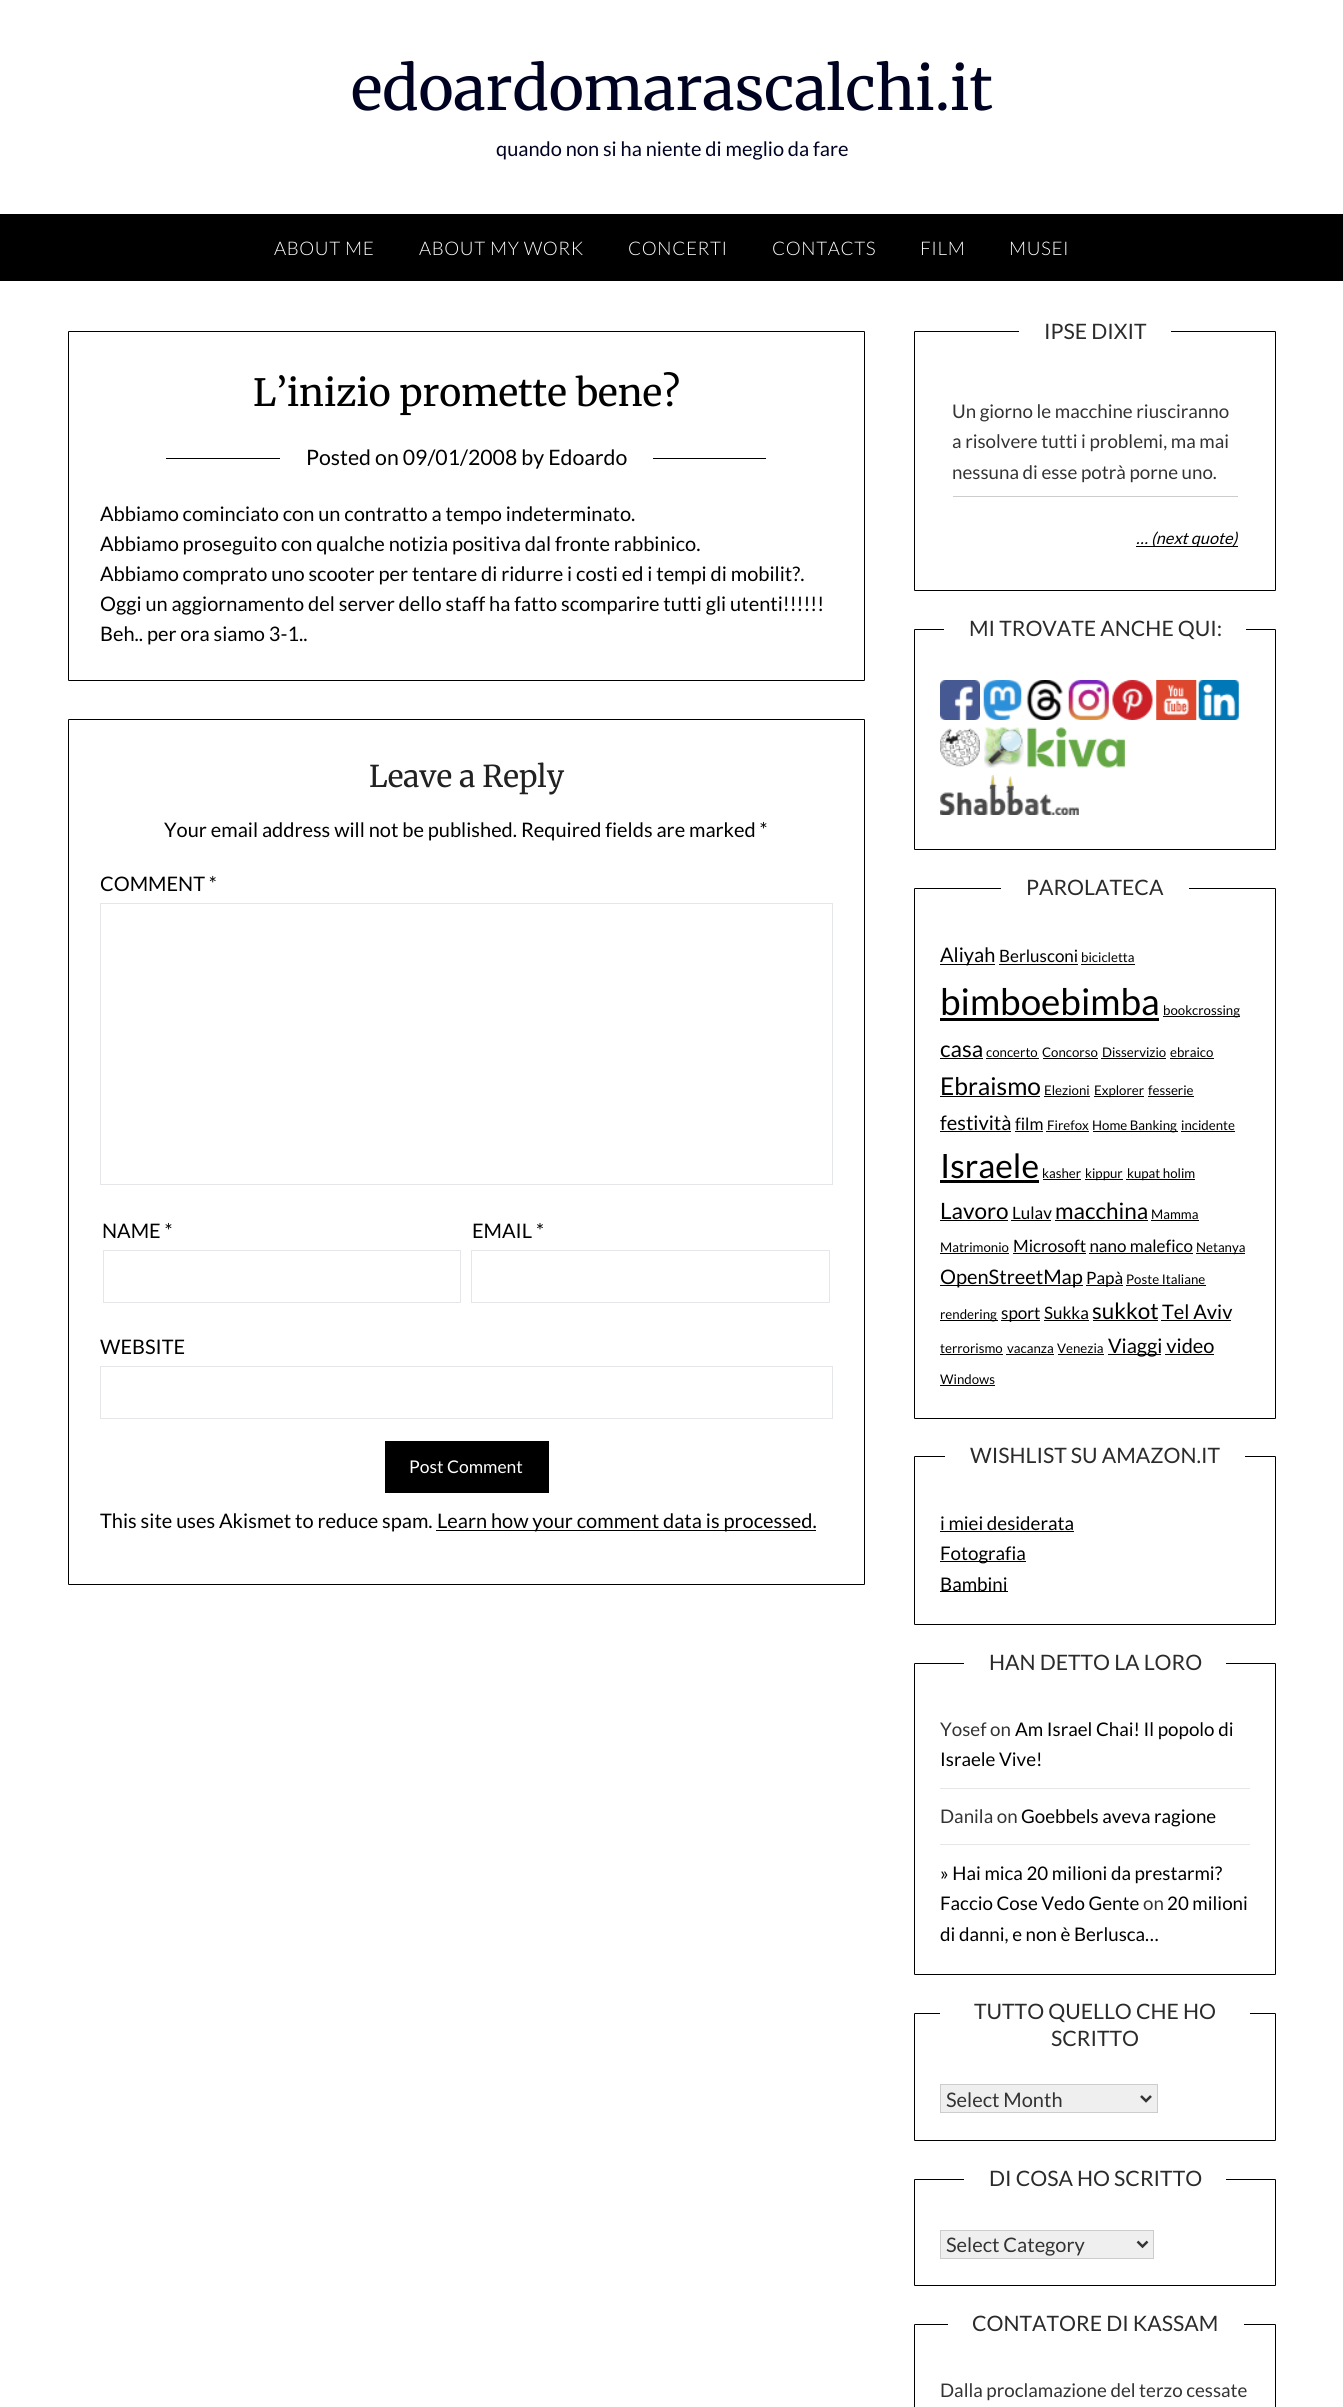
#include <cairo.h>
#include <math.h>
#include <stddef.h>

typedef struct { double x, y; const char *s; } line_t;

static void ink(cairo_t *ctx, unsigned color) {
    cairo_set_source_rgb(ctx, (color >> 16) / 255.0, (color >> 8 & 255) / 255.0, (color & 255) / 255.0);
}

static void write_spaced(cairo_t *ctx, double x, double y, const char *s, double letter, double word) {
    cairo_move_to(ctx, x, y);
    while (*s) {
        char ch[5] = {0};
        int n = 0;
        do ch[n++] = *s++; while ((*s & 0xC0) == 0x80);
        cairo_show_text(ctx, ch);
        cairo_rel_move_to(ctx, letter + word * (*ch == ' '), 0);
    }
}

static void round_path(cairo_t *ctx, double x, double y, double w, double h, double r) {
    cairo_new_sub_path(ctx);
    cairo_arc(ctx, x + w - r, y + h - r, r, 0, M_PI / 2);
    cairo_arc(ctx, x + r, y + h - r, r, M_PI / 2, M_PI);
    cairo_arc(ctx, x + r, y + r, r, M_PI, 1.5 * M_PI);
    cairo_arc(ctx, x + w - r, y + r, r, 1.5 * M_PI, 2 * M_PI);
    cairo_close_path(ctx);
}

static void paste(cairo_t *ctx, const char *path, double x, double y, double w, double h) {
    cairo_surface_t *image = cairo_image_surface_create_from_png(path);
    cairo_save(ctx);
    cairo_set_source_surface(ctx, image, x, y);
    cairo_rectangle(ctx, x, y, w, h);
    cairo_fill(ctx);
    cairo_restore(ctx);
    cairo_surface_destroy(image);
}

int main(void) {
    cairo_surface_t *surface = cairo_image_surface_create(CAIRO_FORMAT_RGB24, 1343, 2407);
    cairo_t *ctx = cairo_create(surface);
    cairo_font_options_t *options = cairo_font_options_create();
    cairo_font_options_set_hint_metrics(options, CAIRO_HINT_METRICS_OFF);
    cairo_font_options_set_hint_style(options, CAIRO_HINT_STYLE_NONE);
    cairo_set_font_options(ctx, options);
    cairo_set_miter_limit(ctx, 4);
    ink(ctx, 0xFFFFFF);
    cairo_paint(ctx);
    cairo_select_font_face(ctx, "Merriweather", CAIRO_FONT_SLANT_NORMAL, CAIRO_FONT_WEIGHT_NORMAL);
    cairo_set_font_size(ctx, 60);
    ink(ctx, 0x000222);
    cairo_move_to(ctx, 351, 110);
    cairo_show_text(ctx, "edoardomarascalchi.it");
    cairo_select_font_face(ctx, "Lato", CAIRO_FONT_SLANT_NORMAL, CAIRO_FONT_WEIGHT_NORMAL);
    cairo_set_font_size(ctx, 20);
    cairo_move_to(ctx, 496, 156);
    cairo_show_text(ctx, "quando non si ha niente di meglio da fare");
    ink(ctx, 0x000000);
    cairo_rectangle(ctx, 0, 214, 1343, 67);
    cairo_fill(ctx);
    cairo_select_font_face(ctx, "Lato Light", CAIRO_FONT_SLANT_NORMAL, CAIRO_FONT_WEIGHT_NORMAL);
    cairo_set_font_size(ctx, 18.75);
    ink(ctx, 0xFFFFFF);
    {
        static const line_t items[] = {
            {274, 255, "ABOUT ME"},
            {419, 255, "ABOUT MY WORK"},
            {628, 255, "CONCERTI"},
            {772, 255, "CONTACTS"},
            {920, 255, "FILM"},
            {1009, 255, "MUSEI"},
        };
        for (size_t i = 0; i < sizeof items / sizeof *items; i++) {
            write_spaced(ctx, items[i].x, items[i].y, items[i].s, 0.6, 0);
        }
    }
    round_path(ctx, 68.5, 331.5, 796, 349, 0.5);
    ink(ctx, 0x000000);
    cairo_set_line_width(ctx, 1);
    cairo_stroke(ctx);
    cairo_select_font_face(ctx, "Merriweather", CAIRO_FONT_SLANT_NORMAL, CAIRO_FONT_WEIGHT_NORMAL);
    cairo_set_font_size(ctx, 37.5);
    cairo_move_to(ctx, 253, 406);
    cairo_show_text(ctx, "L’inizio promette bene?");
    cairo_rectangle(ctx, 166, 458, 600, 1);
    cairo_fill(ctx);
    ink(ctx, 0xFFFFFF);
    cairo_rectangle(ctx, 280, 458, 373, 1);
    cairo_fill(ctx);
    cairo_select_font_face(ctx, "Lato", CAIRO_FONT_SLANT_NORMAL, CAIRO_FONT_WEIGHT_NORMAL);
    cairo_set_font_size(ctx, 21.25);
    ink(ctx, 0x000000);
    cairo_move_to(ctx, 306, 465);
    cairo_show_text(ctx, "Posted on 09/01/2008 by Edoardo");
    cairo_set_font_size(ctx, 20);
    {
        static const line_t items[] = {
            {100, 521, "Abbiamo cominciato con un contratto a tempo indeterminato."},
            {100, 551, "Abbiamo proseguito con qualche notizia positiva dal fronte rabbinico."},
            {100, 581, "Abbiamo comprato uno scooter per tentare di ridurre i costi ed i tempi di mobilit?."},
            {100, 611, "Oggi un aggiornamento del server dello staff ha fatto scomparire tutti gli utenti!!!!!!"},
            {100, 641, "Beh.. per ora siamo 3-1.."},
        };
        for (size_t i = 0; i < sizeof items / sizeof *items; i++) {
            cairo_move_to(ctx, items[i].x, items[i].y);
            cairo_show_text(ctx, items[i].s);
        }
    }
    round_path(ctx, 68.5, 719.5, 796, 865, 0.5);
    cairo_stroke(ctx);
    cairo_select_font_face(ctx, "Merriweather", CAIRO_FONT_SLANT_NORMAL, CAIRO_FONT_WEIGHT_NORMAL);
    cairo_set_font_size(ctx, 30);
    ink(ctx, 0x222222);
    cairo_move_to(ctx, 369, 787);
    cairo_show_text(ctx, "Leave a Reply");
    cairo_select_font_face(ctx, "Lato", CAIRO_FONT_SLANT_NORMAL, CAIRO_FONT_WEIGHT_NORMAL);
    cairo_set_font_size(ctx, 20);
    ink(ctx, 0x000000);
    cairo_move_to(ctx, 164, 837);
    cairo_show_text(ctx, "Your email address will not be published. Required fields are marked *");
    cairo_move_to(ctx, 100, 891);
    cairo_show_text(ctx, "COMMENT *");
    cairo_rectangle(ctx, 100.5, 903.5, 732, 281);
    ink(ctx, 0xE5E6E9);
    cairo_stroke(ctx);
    ink(ctx, 0x000000);
    cairo_move_to(ctx, 102, 1238);
    cairo_show_text(ctx, "NAME *");
    cairo_rectangle(ctx, 103.5, 1250.5, 357, 52);
    ink(ctx, 0xE5E6E9);
    cairo_stroke(ctx);
    ink(ctx, 0x000000);
    cairo_move_to(ctx, 472, 1238);
    cairo_show_text(ctx, "EMAIL *");
    cairo_rectangle(ctx, 471.5, 1250.5, 358, 52);
    ink(ctx, 0xE5E6E9);
    cairo_stroke(ctx);
    ink(ctx, 0x000000);
    cairo_move_to(ctx, 100, 1354);
    cairo_show_text(ctx, "WEBSITE");
    cairo_rectangle(ctx, 100.5, 1366.5, 732, 52);
    ink(ctx, 0xE5E6E9);
    cairo_stroke(ctx);
    ink(ctx, 0x000000);
    cairo_rectangle(ctx, 385, 1441, 164, 52);
    cairo_fill(ctx);
    cairo_set_font_size(ctx, 17.5);
    ink(ctx, 0xFFFFFF);
    cairo_move_to(ctx, 409, 1473);
    cairo_show_text(ctx, "Post Comment");
    cairo_set_font_size(ctx, 20);
    ink(ctx, 0x000000);
    cairo_move_to(ctx, 100, 1528);
    cairo_show_text(ctx, "This site uses Akismet to reduce spam.");
    cairo_rectangle(ctx, 436, 1530, 380, 1);
    cairo_fill(ctx);
    cairo_move_to(ctx, 437, 1528);
    cairo_show_text(ctx, "Learn how your comment data is processed.");
    round_path(ctx, 914.5, 331.5, 361, 259, 0.5);
    cairo_stroke(ctx);
    ink(ctx, 0xFFFFFF);
    cairo_rectangle(ctx, 1019, 331, 152, 1);
    cairo_fill(ctx);
    cairo_set_font_size(ctx, 21.25);
    ink(ctx, 0x2B2B2B);
    cairo_move_to(ctx, 1044, 339);
    cairo_show_text(ctx, "IPSE DIXIT");
    cairo_set_font_size(ctx, 18.75);
    ink(ctx, 0x333333);
    {
        static const line_t items[] = {
            {952, 418, "Un giorno le macchine riusciranno"},
            {952, 448, "a risolvere tutti i problemi, ma mai"},
            {952, 479, "nessuna di esse potrà porne uno."},
        };
        for (size_t i = 0; i < sizeof items / sizeof *items; i++) {
            cairo_move_to(ctx, items[i].x, items[i].y);
            cairo_show_text(ctx, items[i].s);
        }
    }
    ink(ctx, 0xCCCCCC);
    cairo_rectangle(ctx, 953, 496, 285, 1);
    cairo_fill(ctx);
    ink(ctx, 0x000000);
    cairo_rectangle(ctx, 1136, 546, 102, 1);
    cairo_fill(ctx);
    cairo_select_font_face(ctx, "Lato", CAIRO_FONT_SLANT_ITALIC, CAIRO_FONT_WEIGHT_NORMAL);
    cairo_set_font_size(ctx, 16.25);
    cairo_move_to(ctx, 1136, 544);
    cairo_show_text(ctx, "… (next quote)");
    round_path(ctx, 914.5, 629.5, 361, 220, 0.5);
    cairo_stroke(ctx);
    ink(ctx, 0xFFFFFF);
    cairo_rectangle(ctx, 944, 629, 302, 1);
    cairo_fill(ctx);
    cairo_select_font_face(ctx, "Lato", CAIRO_FONT_SLANT_NORMAL, CAIRO_FONT_WEIGHT_NORMAL);
    cairo_set_font_size(ctx, 21.25);
    ink(ctx, 0x2B2B2B);
    cairo_move_to(ctx, 969, 636);
    cairo_show_text(ctx, "MI TROVATE ANCHE QUI:");
    paste(ctx, "media/1.png", 940, 680, 40, 40);
    paste(ctx, "media/2.png", 983, 680, 39, 40);
    paste(ctx, "media/3.png", 1026, 680, 37, 40);
    paste(ctx, "media/4.png", 1068, 680, 41, 40);
    paste(ctx, "media/5.png", 1112, 680, 41, 40);
    paste(ctx, "media/6.png", 1156, 680, 41, 40);
    paste(ctx, "media/7.png", 1198, 680, 41, 40);
    paste(ctx, "media/8.png", 940, 728, 40, 39);
    paste(ctx, "media/9.png", 984, 727, 40, 41);
    paste(ctx, "media/10.png", 1027, 727, 98, 41);
    paste(ctx, "media/11.png", 940, 775, 139, 40);
    round_path(ctx, 914.5, 888.5, 361, 530, 0.5);
    ink(ctx, 0x000000);
    cairo_stroke(ctx);
    ink(ctx, 0xFFFFFF);
    cairo_rectangle(ctx, 1001, 888, 188, 1);
    cairo_fill(ctx);
    ink(ctx, 0x2B2B2B);
    cairo_move_to(ctx, 1026, 895);
    cairo_show_text(ctx, "PAROLATECA");
    ink(ctx, 0x000000);
    cairo_rectangle(ctx, 940, 964, 55, 1);
    cairo_fill(ctx);
    cairo_set_font_size(ctx, 20);
    cairo_move_to(ctx, 940, 962);
    cairo_show_text(ctx, "Aliyah");
    cairo_set_font_size(ctx, 17);
    cairo_move_to(ctx, 999, 962);
    cairo_show_text(ctx, "Berlusconi");
    cairo_rectangle(ctx, 999, 964, 79, 1);
    cairo_fill(ctx);
    cairo_set_font_size(ctx, 13.25);
    cairo_move_to(ctx, 1081, 962);
    cairo_show_text(ctx, "bicicletta");
    cairo_rectangle(ctx, 1081, 964, 54, 1);
    cairo_fill(ctx);
    cairo_set_font_size(ctx, 36.75);
    cairo_move_to(ctx, 940, 1015);
    cairo_show_text(ctx, "bimboebimba");
    cairo_rectangle(ctx, 940, 1018, 219, 3);
    cairo_fill(ctx);
    cairo_rectangle(ctx, 1163, 1016, 77, 1);
    cairo_fill(ctx);
    cairo_set_font_size(ctx, 13.25);
    cairo_move_to(ctx, 1163, 1015);
    cairo_show_text(ctx, "bookcrossing");
    cairo_set_font_size(ctx, 22.5);
    cairo_move_to(ctx, 940, 1057);
    cairo_show_text(ctx, "casa");
    cairo_rectangle(ctx, 940, 1058, 43, 1);
    cairo_fill(ctx);
    cairo_set_font_size(ctx, 13.25);
    cairo_move_to(ctx, 986, 1057);
    cairo_show_text(ctx, "concerto");
    cairo_rectangle(ctx, 986, 1058, 53, 1);
    cairo_fill(ctx);
    cairo_move_to(ctx, 1042, 1057);
    cairo_show_text(ctx, "Concorso");
    cairo_rectangle(ctx, 1043, 1058, 55, 1);
    cairo_fill(ctx);
    cairo_move_to(ctx, 1102, 1057);
    cairo_show_text(ctx, "Disservizio");
    cairo_rectangle(ctx, 1101, 1058, 65, 1);
    cairo_fill(ctx);
    cairo_move_to(ctx, 1170, 1057);
    cairo_show_text(ctx, "ebraico");
    cairo_rectangle(ctx, 1170, 1058, 44, 1);
    cairo_fill(ctx);
    cairo_set_font_size(ctx, 24.5);
    cairo_move_to(ctx, 940, 1095);
    cairo_show_text(ctx, "Ebraismo");
    cairo_rectangle(ctx, 940, 1096, 100, 1);
    cairo_fill(ctx);
    cairo_set_font_size(ctx, 13.25);
    cairo_move_to(ctx, 1044, 1095);
    cairo_show_text(ctx, "Elezioni");
    cairo_rectangle(ctx, 1044, 1096, 46, 1);
    cairo_fill(ctx);
    cairo_rectangle(ctx, 1094, 1096, 50, 1);
    cairo_fill(ctx);
    cairo_move_to(ctx, 1094, 1095);
    cairo_show_text(ctx, "Explorer");
    cairo_move_to(ctx, 1148, 1095);
    cairo_show_text(ctx, "fesserie");
    cairo_rectangle(ctx, 1148, 1096, 46, 1);
    cairo_fill(ctx);
    cairo_set_font_size(ctx, 20);
    cairo_move_to(ctx, 940, 1130);
    cairo_show_text(ctx, "festività");
    cairo_rectangle(ctx, 940, 1131, 71, 1);
    cairo_fill(ctx);
    cairo_set_font_size(ctx, 17);
    cairo_move_to(ctx, 1015, 1130);
    cairo_show_text(ctx, "film");
    cairo_rectangle(ctx, 1015, 1131, 28, 1);
    cairo_fill(ctx);
    cairo_set_font_size(ctx, 13.25);
    cairo_move_to(ctx, 1047, 1130);
    cairo_show_text(ctx, "Firefox");
    cairo_rectangle(ctx, 1046, 1131, 43, 1);
    cairo_fill(ctx);
    cairo_rectangle(ctx, 1093, 1131, 85, 1);
    cairo_fill(ctx);
    cairo_move_to(ctx, 1092, 1130);
    cairo_show_text(ctx, "Home Banking");
    cairo_move_to(ctx, 1181, 1130);
    cairo_show_text(ctx, "incidente");
    cairo_rectangle(ctx, 1181, 1131, 54, 1);
    cairo_fill(ctx);
    cairo_set_font_size(ctx, 33.5);
    cairo_move_to(ctx, 940, 1178);
    cairo_show_text(ctx, "Israele");
    cairo_rectangle(ctx, 940, 1180, 99, 3);
    cairo_fill(ctx);
    cairo_set_font_size(ctx, 13.25);
    cairo_move_to(ctx, 1042, 1178);
    cairo_show_text(ctx, "kasher");
    cairo_rectangle(ctx, 1043, 1179, 38, 1);
    cairo_fill(ctx);
    cairo_rectangle(ctx, 1085, 1179, 38, 1);
    cairo_fill(ctx);
    cairo_move_to(ctx, 1085, 1178);
    cairo_show_text(ctx, "kippur");
    cairo_rectangle(ctx, 1126, 1179, 69, 1);
    cairo_fill(ctx);
    cairo_move_to(ctx, 1127, 1178);
    cairo_show_text(ctx, "kupat holim");
    cairo_set_font_size(ctx, 22.5);
    cairo_move_to(ctx, 940, 1219);
    cairo_show_text(ctx, "Lavoro");
    cairo_rectangle(ctx, 940, 1220, 68, 1);
    cairo_fill(ctx);
    cairo_set_font_size(ctx, 17);
    cairo_move_to(ctx, 1012, 1219);
    cairo_show_text(ctx, "Lulav");
    cairo_rectangle(ctx, 1011, 1220, 40, 1);
    cairo_fill(ctx);
    cairo_set_font_size(ctx, 22.5);
    cairo_move_to(ctx, 1055, 1219);
    cairo_show_text(ctx, "macchina");
    cairo_rectangle(ctx, 1055, 1220, 93, 1);
    cairo_fill(ctx);
    cairo_set_font_size(ctx, 13.25);
    cairo_move_to(ctx, 1151, 1219);
    cairo_show_text(ctx, "Mamma");
    cairo_rectangle(ctx, 1151, 1220, 48, 1);
    cairo_fill(ctx);
    cairo_move_to(ctx, 940, 1252);
    cairo_show_text(ctx, "Matrimonio");
    cairo_rectangle(ctx, 940, 1253, 69, 1);
    cairo_fill(ctx);
    cairo_set_font_size(ctx, 17);
    cairo_move_to(ctx, 1013, 1252);
    cairo_show_text(ctx, "Microsoft nano malefico");
    cairo_rectangle(ctx, 1013, 1253, 73, 1);
    cairo_fill(ctx);
    cairo_rectangle(ctx, 1196, 1253, 49, 1);
    cairo_fill(ctx);
    cairo_set_font_size(ctx, 13.25);
    cairo_move_to(ctx, 1196, 1252);
    cairo_show_text(ctx, "Netanya");
    cairo_rectangle(ctx, 1089, 1253, 104, 1);
    cairo_fill(ctx);
    cairo_rectangle(ctx, 940, 1285, 143, 1);
    cairo_fill(ctx);
    cairo_set_font_size(ctx, 20);
    cairo_move_to(ctx, 940, 1284);
    cairo_show_text(ctx, "OpenStreetMap");
    cairo_rectangle(ctx, 1086, 1285, 37, 1);
    cairo_fill(ctx);
    cairo_set_font_size(ctx, 17);
    cairo_move_to(ctx, 1086, 1284);
    cairo_show_text(ctx, "Papà");
    cairo_set_font_size(ctx, 13.25);
    cairo_move_to(ctx, 1126, 1284);
    cairo_show_text(ctx, "Poste Italiane");
    cairo_rectangle(ctx, 1126, 1285, 80, 1);
    cairo_fill(ctx);
    cairo_rectangle(ctx, 940, 1320, 58, 1);
    cairo_fill(ctx);
    cairo_move_to(ctx, 940, 1319);
    cairo_show_text(ctx, "rendering");
    cairo_rectangle(ctx, 1001, 1320, 39, 1);
    cairo_fill(ctx);
    cairo_set_font_size(ctx, 17);
    cairo_move_to(ctx, 1001, 1319);
    cairo_show_text(ctx, "sport");
    cairo_move_to(ctx, 1044, 1319);
    cairo_show_text(ctx, "Sukka");
    cairo_rectangle(ctx, 1044, 1320, 45, 1);
    cairo_fill(ctx);
    cairo_set_font_size(ctx, 22.5);
    cairo_move_to(ctx, 1092, 1319);
    cairo_show_text(ctx, "sukkot");
    cairo_rectangle(ctx, 1093, 1320, 65, 1);
    cairo_fill(ctx);
    cairo_set_font_size(ctx, 20);
    cairo_move_to(ctx, 1162, 1319);
    cairo_show_text(ctx, "Tel Aviv");
    cairo_rectangle(ctx, 1161, 1320, 70, 1);
    cairo_fill(ctx);
    cairo_set_font_size(ctx, 13.25);
    cairo_move_to(ctx, 940, 1353);
    cairo_show_text(ctx, "terrorismo");
    cairo_rectangle(ctx, 940, 1354, 63, 1);
    cairo_fill(ctx);
    cairo_move_to(ctx, 1007, 1353);
    cairo_show_text(ctx, "vacanza");
    cairo_rectangle(ctx, 1006, 1354, 48, 1);
    cairo_fill(ctx);
    cairo_move_to(ctx, 1057, 1353);
    cairo_show_text(ctx, "Venezia");
    cairo_rectangle(ctx, 1058, 1354, 46, 1);
    cairo_fill(ctx);
    cairo_rectangle(ctx, 1108, 1354, 53, 1);
    cairo_fill(ctx);
    cairo_set_font_size(ctx, 20);
    cairo_move_to(ctx, 1108, 1353);
    cairo_show_text(ctx, "Viaggi video");
    cairo_rectangle(ctx, 1165, 1354, 49, 1);
    cairo_fill(ctx);
    cairo_set_font_size(ctx, 13.25);
    cairo_move_to(ctx, 940, 1384);
    cairo_show_text(ctx, "Windows");
    cairo_rectangle(ctx, 940, 1385, 55, 1);
    cairo_fill(ctx);
    round_path(ctx, 914.5, 1456.5, 361, 168, 0.5);
    cairo_stroke(ctx);
    ink(ctx, 0xFFFFFF);
    cairo_rectangle(ctx, 945, 1456, 300, 1);
    cairo_fill(ctx);
    cairo_set_font_size(ctx, 21.25);
    ink(ctx, 0x2B2B2B);
    cairo_move_to(ctx, 970, 1463);
    cairo_show_text(ctx, "WISHLIST SU AMAZON.IT");
    cairo_set_font_size(ctx, 18.75);
    ink(ctx, 0x000000);
    cairo_move_to(ctx, 940, 1530);
    cairo_show_text(ctx, "i miei desiderata");
    cairo_rectangle(ctx, 940, 1531, 134, 1);
    cairo_fill(ctx);
    cairo_rectangle(ctx, 940, 1561, 86, 1);
    cairo_fill(ctx);
    cairo_move_to(ctx, 940, 1560);
    cairo_show_text(ctx, "Fotografia");
    cairo_rectangle(ctx, 940, 1591, 68, 1);
    cairo_fill(ctx);
    cairo_move_to(ctx, 940, 1591);
    cairo_show_text(ctx, "Bambini");
    round_path(ctx, 914.5, 1663.5, 361, 311, 0.5);
    cairo_stroke(ctx);
    ink(ctx, 0xFFFFFF);
    cairo_rectangle(ctx, 964, 1663, 262, 1);
    cairo_fill(ctx);
    cairo_set_font_size(ctx, 21.25);
    ink(ctx, 0x2B2B2B);
    cairo_move_to(ctx, 989, 1670);
    cairo_show_text(ctx, "HAN DETTO LA LORO");
    ink(ctx, 0xE6E6E6);
    cairo_rectangle(ctx, 940, 1788, 310, 1);
    cairo_fill(ctx);
    cairo_set_font_size(ctx, 18.75);
    ink(ctx, 0x333333);
    cairo_move_to(ctx, 940, 1736);
    cairo_show_text(ctx, "Yosef on");
    ink(ctx, 0x000000);
    cairo_move_to(ctx, 1015, 1736);
    cairo_show_text(ctx, "Am Israel Chai! Il popolo di");
    cairo_move_to(ctx, 940, 1766);
    cairo_show_text(ctx, "Israele Vive!");
    ink(ctx, 0xE6E6E6);
    cairo_rectangle(ctx, 940, 1844, 310, 1);
    cairo_fill(ctx);
    ink(ctx, 0x333333);
    cairo_move_to(ctx, 940, 1823);
    cairo_show_text(ctx, "Danila on");
    ink(ctx, 0x000000);
    {
        static const line_t items[] = {
            {1021, 1823, "Goebbels aveva ragione"},
            {940, 1880, "» Hai mica 20 milioni da prestarmi?"},
            {940, 1910, "Faccio Cose Vedo Gente"},
        };
        for (size_t i = 0; i < sizeof items / sizeof *items; i++) {
            cairo_move_to(ctx, items[i].x, items[i].y);
            cairo_show_text(ctx, items[i].s);
        }
    }
    ink(ctx, 0x333333);
    cairo_move_to(ctx, 1143, 1910);
    cairo_show_text(ctx, "on");
    ink(ctx, 0x000000);
    cairo_move_to(ctx, 1167, 1910);
    cairo_show_text(ctx, "20 milioni");
    cairo_move_to(ctx, 940, 1941);
    cairo_show_text(ctx, "di danni, e non è Berlusca…");
    round_path(ctx, 914.5, 2013.5, 361, 127, 0.5);
    cairo_stroke(ctx);
    ink(ctx, 0xFFFFFF);
    cairo_rectangle(ctx, 940, 2013, 310, 1);
    cairo_fill(ctx);
    cairo_set_font_size(ctx, 21.25);
    ink(ctx, 0x2B2B2B);
    cairo_move_to(ctx, 974, 2019);
    cairo_show_text(ctx, "TUTTO QUELLO CHE HO");
    cairo_move_to(ctx, 1051, 2046);
    cairo_show_text(ctx, "SCRITTO");
    ink(ctx, 0xEFEFEF);
    cairo_rectangle(ctx, 940.5, 2084.5, 217, 28);
    cairo_fill_preserve(ctx);
    ink(ctx, 0xCCCCCC);
    cairo_stroke(ctx);
    cairo_new_path(ctx);
    cairo_move_to(ctx, 1141, 2096);
    cairo_line_to(ctx, 1146, 2101);
    cairo_line_to(ctx, 1151, 2096);
    ink(ctx, 0x333333);
    cairo_set_line_width(ctx, 2.5);
    cairo_stroke(ctx);
    cairo_set_font_size(ctx, 20);
    cairo_move_to(ctx, 946, 2107);
    cairo_show_text(ctx, "Select Month");
    round_path(ctx, 914.5, 2179.5, 361, 106, 0.5);
    ink(ctx, 0x000000);
    cairo_set_line_width(ctx, 1);
    cairo_stroke(ctx);
    ink(ctx, 0xFFFFFF);
    cairo_rectangle(ctx, 964, 2179, 262, 1);
    cairo_fill(ctx);
    cairo_set_font_size(ctx, 21.25);
    ink(ctx, 0x2B2B2B);
    cairo_move_to(ctx, 989, 2186);
    cairo_show_text(ctx, "DI COSA HO SCRITTO");
    ink(ctx, 0xEFEFEF);
    cairo_rectangle(ctx, 940.5, 2230.5, 213, 28);
    cairo_fill_preserve(ctx);
    ink(ctx, 0xCCCCCC);
    cairo_stroke(ctx);
    cairo_new_path(ctx);
    cairo_move_to(ctx, 1137.5, 2241.5);
    cairo_line_to(ctx, 1142.5, 2246.5);
    cairo_line_to(ctx, 1147.5, 2241.5);
    ink(ctx, 0x333333);
    cairo_set_line_width(ctx, 2.5);
    cairo_stroke(ctx);
    cairo_set_font_size(ctx, 20);
    cairo_move_to(ctx, 946, 2252);
    cairo_show_text(ctx, "Select Category");
    round_path(ctx, 914.5, 2324.5, 361, 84, 0.5);
    ink(ctx, 0x000000);
    cairo_set_line_width(ctx, 1);
    cairo_stroke(ctx);
    ink(ctx, 0xFFFFFF);
    cairo_rectangle(ctx, 948, 2324, 296, 1);
    cairo_fill(ctx);
    cairo_set_font_size(ctx, 21.25);
    ink(ctx, 0x2B2B2B);
    cairo_move_to(ctx, 972, 2331);
    cairo_show_text(ctx, "CONTATORE DI KASSAM");
    cairo_set_font_size(ctx, 18.75);
    ink(ctx, 0x333333);
    cairo_move_to(ctx, 940, 2397);
    cairo_show_text(ctx, "Dalla proclamazione del terzo cessate");
    cairo_surface_write_to_png(surface, "image.png");
    cairo_font_options_destroy(options);
    cairo_destroy(ctx);
    cairo_surface_destroy(surface);
    return 0;
}
